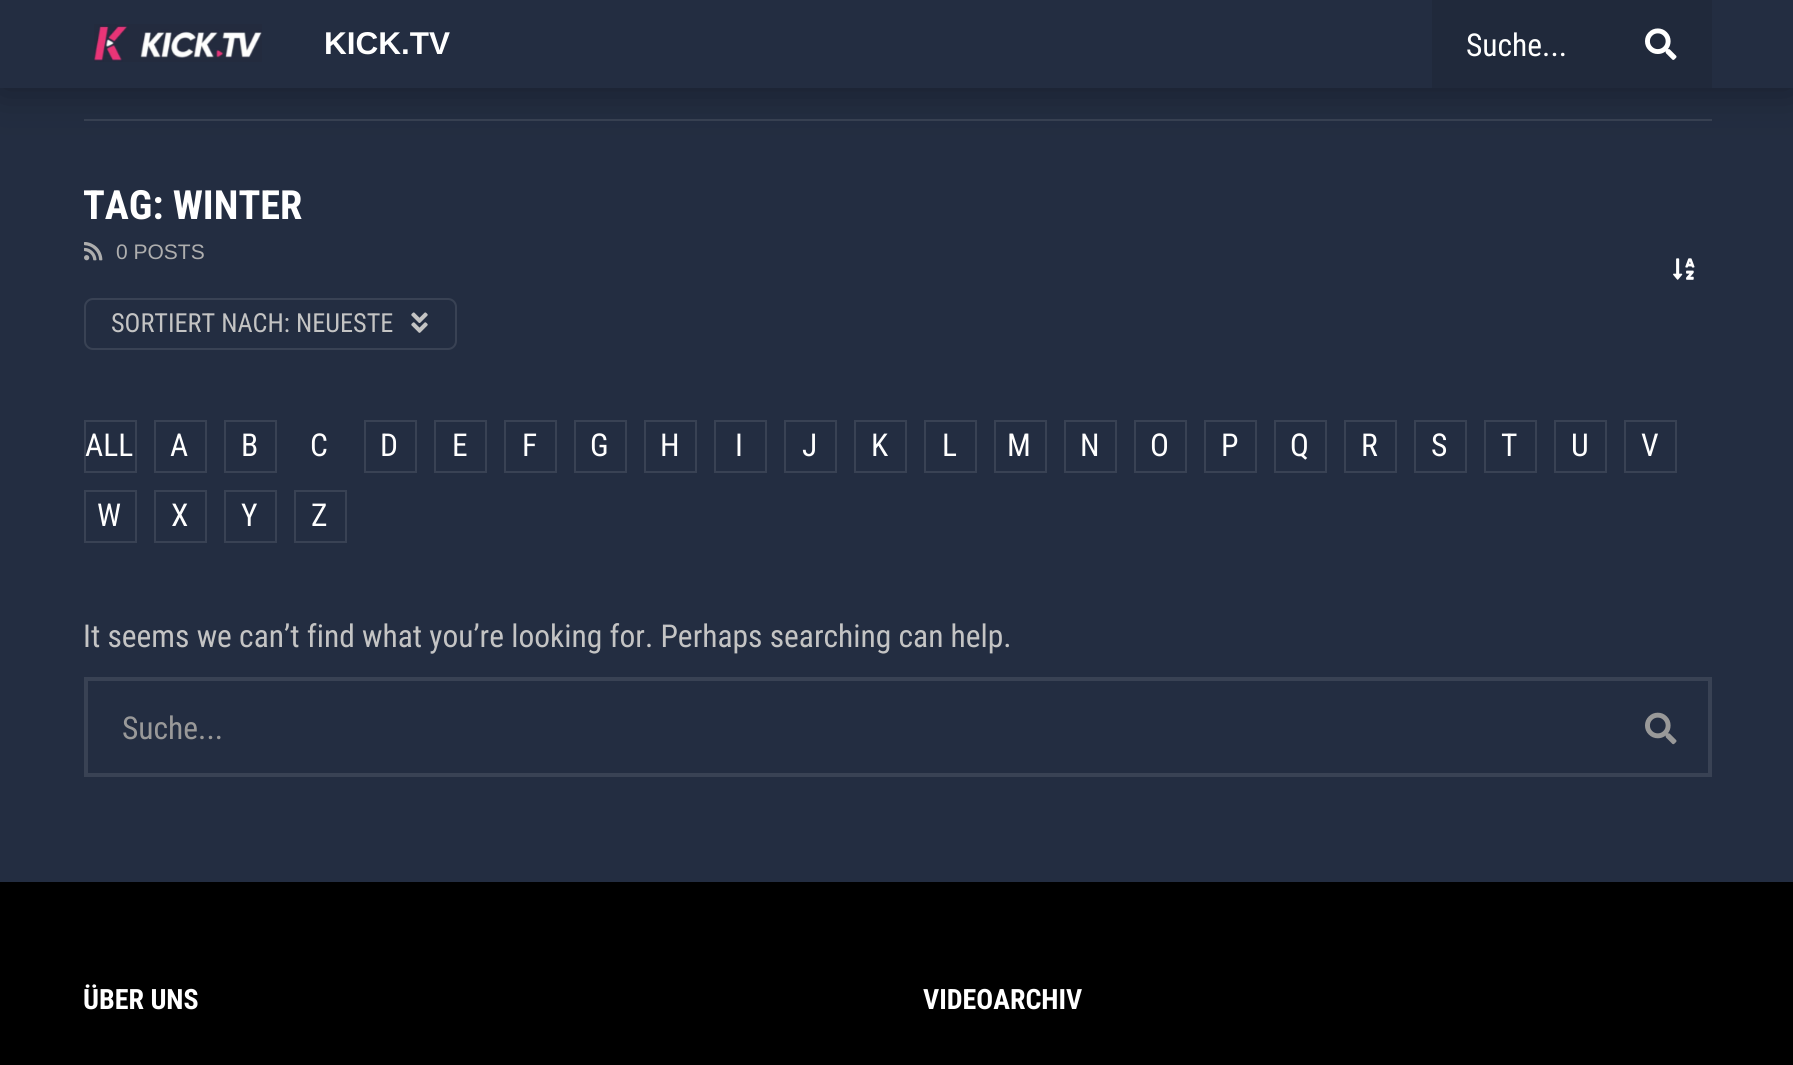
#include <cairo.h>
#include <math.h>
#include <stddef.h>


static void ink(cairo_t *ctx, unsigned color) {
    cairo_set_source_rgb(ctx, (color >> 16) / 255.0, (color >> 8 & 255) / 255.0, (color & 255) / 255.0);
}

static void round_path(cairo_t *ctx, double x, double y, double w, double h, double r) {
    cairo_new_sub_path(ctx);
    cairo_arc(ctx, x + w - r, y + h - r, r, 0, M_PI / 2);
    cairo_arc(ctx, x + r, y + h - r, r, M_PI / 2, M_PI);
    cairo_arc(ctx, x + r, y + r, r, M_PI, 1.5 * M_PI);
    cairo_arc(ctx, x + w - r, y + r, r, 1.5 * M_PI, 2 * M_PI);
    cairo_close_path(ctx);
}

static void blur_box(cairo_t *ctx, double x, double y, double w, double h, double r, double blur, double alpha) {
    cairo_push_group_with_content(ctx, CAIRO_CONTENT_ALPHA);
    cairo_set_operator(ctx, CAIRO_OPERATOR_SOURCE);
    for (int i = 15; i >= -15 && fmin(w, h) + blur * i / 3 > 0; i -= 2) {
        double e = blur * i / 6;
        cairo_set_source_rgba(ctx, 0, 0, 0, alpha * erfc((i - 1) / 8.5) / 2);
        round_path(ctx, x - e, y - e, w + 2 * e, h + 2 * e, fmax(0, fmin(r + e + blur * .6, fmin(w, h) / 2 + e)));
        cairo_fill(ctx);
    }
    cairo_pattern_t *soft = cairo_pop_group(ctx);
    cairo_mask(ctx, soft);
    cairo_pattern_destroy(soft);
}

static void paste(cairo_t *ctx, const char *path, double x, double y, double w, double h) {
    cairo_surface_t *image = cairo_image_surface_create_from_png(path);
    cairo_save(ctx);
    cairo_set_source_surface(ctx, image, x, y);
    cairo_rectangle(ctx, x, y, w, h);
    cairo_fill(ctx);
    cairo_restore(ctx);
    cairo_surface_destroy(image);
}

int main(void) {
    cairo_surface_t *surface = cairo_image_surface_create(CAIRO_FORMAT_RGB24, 1793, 1065);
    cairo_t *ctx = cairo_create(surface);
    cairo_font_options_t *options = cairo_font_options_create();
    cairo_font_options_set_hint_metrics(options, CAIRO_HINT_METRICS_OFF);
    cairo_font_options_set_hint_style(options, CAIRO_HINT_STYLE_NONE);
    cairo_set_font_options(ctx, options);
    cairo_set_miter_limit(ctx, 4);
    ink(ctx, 0x232D41);
    cairo_paint(ctx);
    ink(ctx, 0x394254);
    cairo_rectangle(ctx, 84, 119, 1628, 2);
    cairo_fill(ctx);
    ink(ctx, 0x000000);
    blur_box(ctx, 0, 0, 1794, 88, 0, 22, 0.35);
    ink(ctx, 0x232D41);
    cairo_rectangle(ctx, 0, 0, 1793, 88);
    cairo_fill(ctx);
    paste(ctx, "media/1.png", 94, 24, 168, 38);
    cairo_select_font_face(ctx, "Liberation Sans", CAIRO_FONT_SLANT_NORMAL, CAIRO_FONT_WEIGHT_BOLD);
    cairo_set_font_size(ctx, 31.5);
    ink(ctx, 0xFFFFFF);
    cairo_move_to(ctx, 324, 54);
    cairo_show_text(ctx, "KICK.TV");
    ink(ctx, 0x20293B);
    cairo_rectangle(ctx, 1432, 0, 280, 88);
    cairo_fill(ctx);
    cairo_select_font_face(ctx, "Roboto Condensed", CAIRO_FONT_SLANT_NORMAL, CAIRO_FONT_WEIGHT_NORMAL);
    ink(ctx, 0xFFFFFF);
    cairo_move_to(ctx, 1466, 56);
    cairo_show_text(ctx, "Suche...");
    paste(ctx, "media/2.png", 1645, 28, 32, 32);
    cairo_select_font_face(ctx, "Roboto Condensed", CAIRO_FONT_SLANT_NORMAL, CAIRO_FONT_WEIGHT_BOLD);
    cairo_set_font_size(ctx, 40.25);
    cairo_move_to(ctx, 83, 219);
    cairo_show_text(ctx, "TAG: WINTER");
    paste(ctx, "media/3.png", 84, 242, 19, 19);
    cairo_select_font_face(ctx, "Liberation Sans", CAIRO_FONT_SLANT_NORMAL, CAIRO_FONT_WEIGHT_NORMAL);
    cairo_set_font_size(ctx, 21);
    ink(ctx, 0xAEAEAE);
    cairo_move_to(ctx, 116, 259);
    cairo_show_text(ctx, "0 POSTS");
    round_path(ctx, 85, 299, 371, 50, 8);
    ink(ctx, 0x394254);
    cairo_stroke(ctx);
    cairo_select_font_face(ctx, "Roboto Condensed", CAIRO_FONT_SLANT_NORMAL, CAIRO_FONT_WEIGHT_NORMAL);
    cairo_set_font_size(ctx, 26.25);
    ink(ctx, 0xC4C4C4);
    cairo_move_to(ctx, 111, 332);
    cairo_show_text(ctx, "SORTIERT NACH: NEUESTE");
    paste(ctx, "media/4.png", 411, 312, 17, 21);
    paste(ctx, "media/5.png", 1673, 258, 22, 22);
    cairo_rectangle(ctx, 85, 421, 51, 51);
    ink(ctx, 0x394254);
    cairo_stroke(ctx);
    cairo_set_font_size(ctx, 31.5);
    ink(ctx, 0xFFFFFF);
    cairo_move_to(ctx, 85, 456);
    cairo_show_text(ctx, "ALL");
    cairo_rectangle(ctx, 155, 421, 51, 51);
    ink(ctx, 0x394254);
    cairo_stroke(ctx);
    ink(ctx, 0xFFFFFF);
    cairo_move_to(ctx, 170, 456);
    cairo_show_text(ctx, "A");
    cairo_rectangle(ctx, 225, 421, 51, 51);
    ink(ctx, 0x394254);
    cairo_stroke(ctx);
    ink(ctx, 0xFFFFFF);
    cairo_move_to(ctx, 241, 456);
    cairo_show_text(ctx, "B");
    cairo_move_to(ctx, 310, 456);
    cairo_show_text(ctx, "C");
    cairo_rectangle(ctx, 365, 421, 51, 51);
    ink(ctx, 0x394254);
    cairo_stroke(ctx);
    ink(ctx, 0xFFFFFF);
    cairo_move_to(ctx, 380, 456);
    cairo_show_text(ctx, "D");
    cairo_rectangle(ctx, 435, 421, 51, 51);
    ink(ctx, 0x394254);
    cairo_stroke(ctx);
    ink(ctx, 0xFFFFFF);
    cairo_move_to(ctx, 452, 456);
    cairo_show_text(ctx, "E");
    cairo_rectangle(ctx, 505, 421, 51, 51);
    ink(ctx, 0x394254);
    cairo_stroke(ctx);
    ink(ctx, 0xFFFFFF);
    cairo_move_to(ctx, 522, 456);
    cairo_show_text(ctx, "F");
    cairo_rectangle(ctx, 575, 421, 51, 51);
    ink(ctx, 0x394254);
    cairo_stroke(ctx);
    ink(ctx, 0xFFFFFF);
    cairo_move_to(ctx, 590, 456);
    cairo_show_text(ctx, "G");
    cairo_rectangle(ctx, 645, 421, 51, 51);
    ink(ctx, 0x394254);
    cairo_stroke(ctx);
    ink(ctx, 0xFFFFFF);
    cairo_move_to(ctx, 660, 456);
    cairo_show_text(ctx, "H");
    cairo_rectangle(ctx, 715, 421, 51, 51);
    ink(ctx, 0x394254);
    cairo_stroke(ctx);
    ink(ctx, 0xFFFFFF);
    cairo_move_to(ctx, 735, 456);
    cairo_show_text(ctx, "I");
    cairo_rectangle(ctx, 785, 421, 51, 51);
    ink(ctx, 0x394254);
    cairo_stroke(ctx);
    ink(ctx, 0xFFFFFF);
    cairo_move_to(ctx, 802, 456);
    cairo_show_text(ctx, "J");
    cairo_rectangle(ctx, 855, 421, 51, 51);
    ink(ctx, 0x394254);
    cairo_stroke(ctx);
    ink(ctx, 0xFFFFFF);
    cairo_move_to(ctx, 871, 456);
    cairo_show_text(ctx, "K");
    cairo_rectangle(ctx, 925, 421, 51, 51);
    ink(ctx, 0x394254);
    cairo_stroke(ctx);
    ink(ctx, 0xFFFFFF);
    cairo_move_to(ctx, 942, 456);
    cairo_show_text(ctx, "L");
    cairo_rectangle(ctx, 995, 421, 51, 51);
    ink(ctx, 0x394254);
    cairo_stroke(ctx);
    ink(ctx, 0xFFFFFF);
    cairo_move_to(ctx, 1007, 456);
    cairo_show_text(ctx, "M");
    cairo_rectangle(ctx, 1065, 421, 51, 51);
    ink(ctx, 0x394254);
    cairo_stroke(ctx);
    ink(ctx, 0xFFFFFF);
    cairo_move_to(ctx, 1080, 456);
    cairo_show_text(ctx, "N");
    cairo_rectangle(ctx, 1135, 421, 51, 51);
    ink(ctx, 0x394254);
    cairo_stroke(ctx);
    ink(ctx, 0xFFFFFF);
    cairo_move_to(ctx, 1150, 456);
    cairo_show_text(ctx, "O");
    cairo_rectangle(ctx, 1205, 421, 51, 51);
    ink(ctx, 0x394254);
    cairo_stroke(ctx);
    ink(ctx, 0xFFFFFF);
    cairo_move_to(ctx, 1221, 456);
    cairo_show_text(ctx, "P");
    cairo_rectangle(ctx, 1275, 421, 51, 51);
    ink(ctx, 0x394254);
    cairo_stroke(ctx);
    ink(ctx, 0xFFFFFF);
    cairo_move_to(ctx, 1290, 456);
    cairo_show_text(ctx, "Q");
    cairo_rectangle(ctx, 1345, 421, 51, 51);
    ink(ctx, 0x394254);
    cairo_stroke(ctx);
    ink(ctx, 0xFFFFFF);
    cairo_move_to(ctx, 1361, 456);
    cairo_show_text(ctx, "R");
    cairo_rectangle(ctx, 1415, 421, 51, 51);
    ink(ctx, 0x394254);
    cairo_stroke(ctx);
    ink(ctx, 0xFFFFFF);
    cairo_move_to(ctx, 1431, 456);
    cairo_show_text(ctx, "S");
    cairo_rectangle(ctx, 1485, 421, 51, 51);
    ink(ctx, 0x394254);
    cairo_stroke(ctx);
    ink(ctx, 0xFFFFFF);
    cairo_move_to(ctx, 1501, 456);
    cairo_show_text(ctx, "T");
    cairo_rectangle(ctx, 1555, 421, 51, 51);
    ink(ctx, 0x394254);
    cairo_stroke(ctx);
    ink(ctx, 0xFFFFFF);
    cairo_move_to(ctx, 1571, 456);
    cairo_show_text(ctx, "U");
    cairo_rectangle(ctx, 1625, 421, 51, 51);
    ink(ctx, 0x394254);
    cairo_stroke(ctx);
    ink(ctx, 0xFFFFFF);
    cairo_move_to(ctx, 1641, 456);
    cairo_show_text(ctx, "V");
    cairo_rectangle(ctx, 85, 491, 51, 51);
    ink(ctx, 0x394254);
    cairo_stroke(ctx);
    ink(ctx, 0xFFFFFF);
    cairo_move_to(ctx, 97, 526);
    cairo_show_text(ctx, "W");
    cairo_rectangle(ctx, 155, 491, 51, 51);
    ink(ctx, 0x394254);
    cairo_stroke(ctx);
    ink(ctx, 0xFFFFFF);
    cairo_move_to(ctx, 171, 526);
    cairo_show_text(ctx, "X");
    cairo_rectangle(ctx, 225, 491, 51, 51);
    ink(ctx, 0x394254);
    cairo_stroke(ctx);
    ink(ctx, 0xFFFFFF);
    cairo_move_to(ctx, 241, 526);
    cairo_show_text(ctx, "Y");
    cairo_rectangle(ctx, 295, 491, 51, 51);
    ink(ctx, 0x394254);
    cairo_stroke(ctx);
    ink(ctx, 0xFFFFFF);
    cairo_move_to(ctx, 311, 526);
    cairo_show_text(ctx, "Z");
    ink(ctx, 0xC4C4C4);
    cairo_move_to(ctx, 83, 647);
    cairo_show_text(ctx, "It seems we can’t find what you’re looking for. Perhaps searching can help.");
    cairo_rectangle(ctx, 86, 679, 1624, 96);
    ink(ctx, 0x394254);
    cairo_set_line_width(ctx, 4);
    cairo_stroke(ctx);
    ink(ctx, 0x999999);
    cairo_move_to(ctx, 122, 739);
    cairo_show_text(ctx, "Suche...");
    paste(ctx, "media/6.png", 1645, 712, 32, 33);
    ink(ctx, 0x000000);
    cairo_rectangle(ctx, 0, 882, 1793, 183);
    cairo_fill(ctx);
    cairo_select_font_face(ctx, "Roboto Condensed", CAIRO_FONT_SLANT_NORMAL, CAIRO_FONT_WEIGHT_BOLD);
    cairo_set_font_size(ctx, 28);
    ink(ctx, 0xFFFFFF);
    cairo_move_to(ctx, 83, 1009);
    cairo_show_text(ctx, "ÜBER UNS");
    cairo_move_to(ctx, 923, 1009);
    cairo_show_text(ctx, "VIDEOARCHIV");
    cairo_surface_write_to_png(surface, "image.png");
    cairo_font_options_destroy(options);
    cairo_destroy(ctx);
    cairo_surface_destroy(surface);
    return 0;
}
